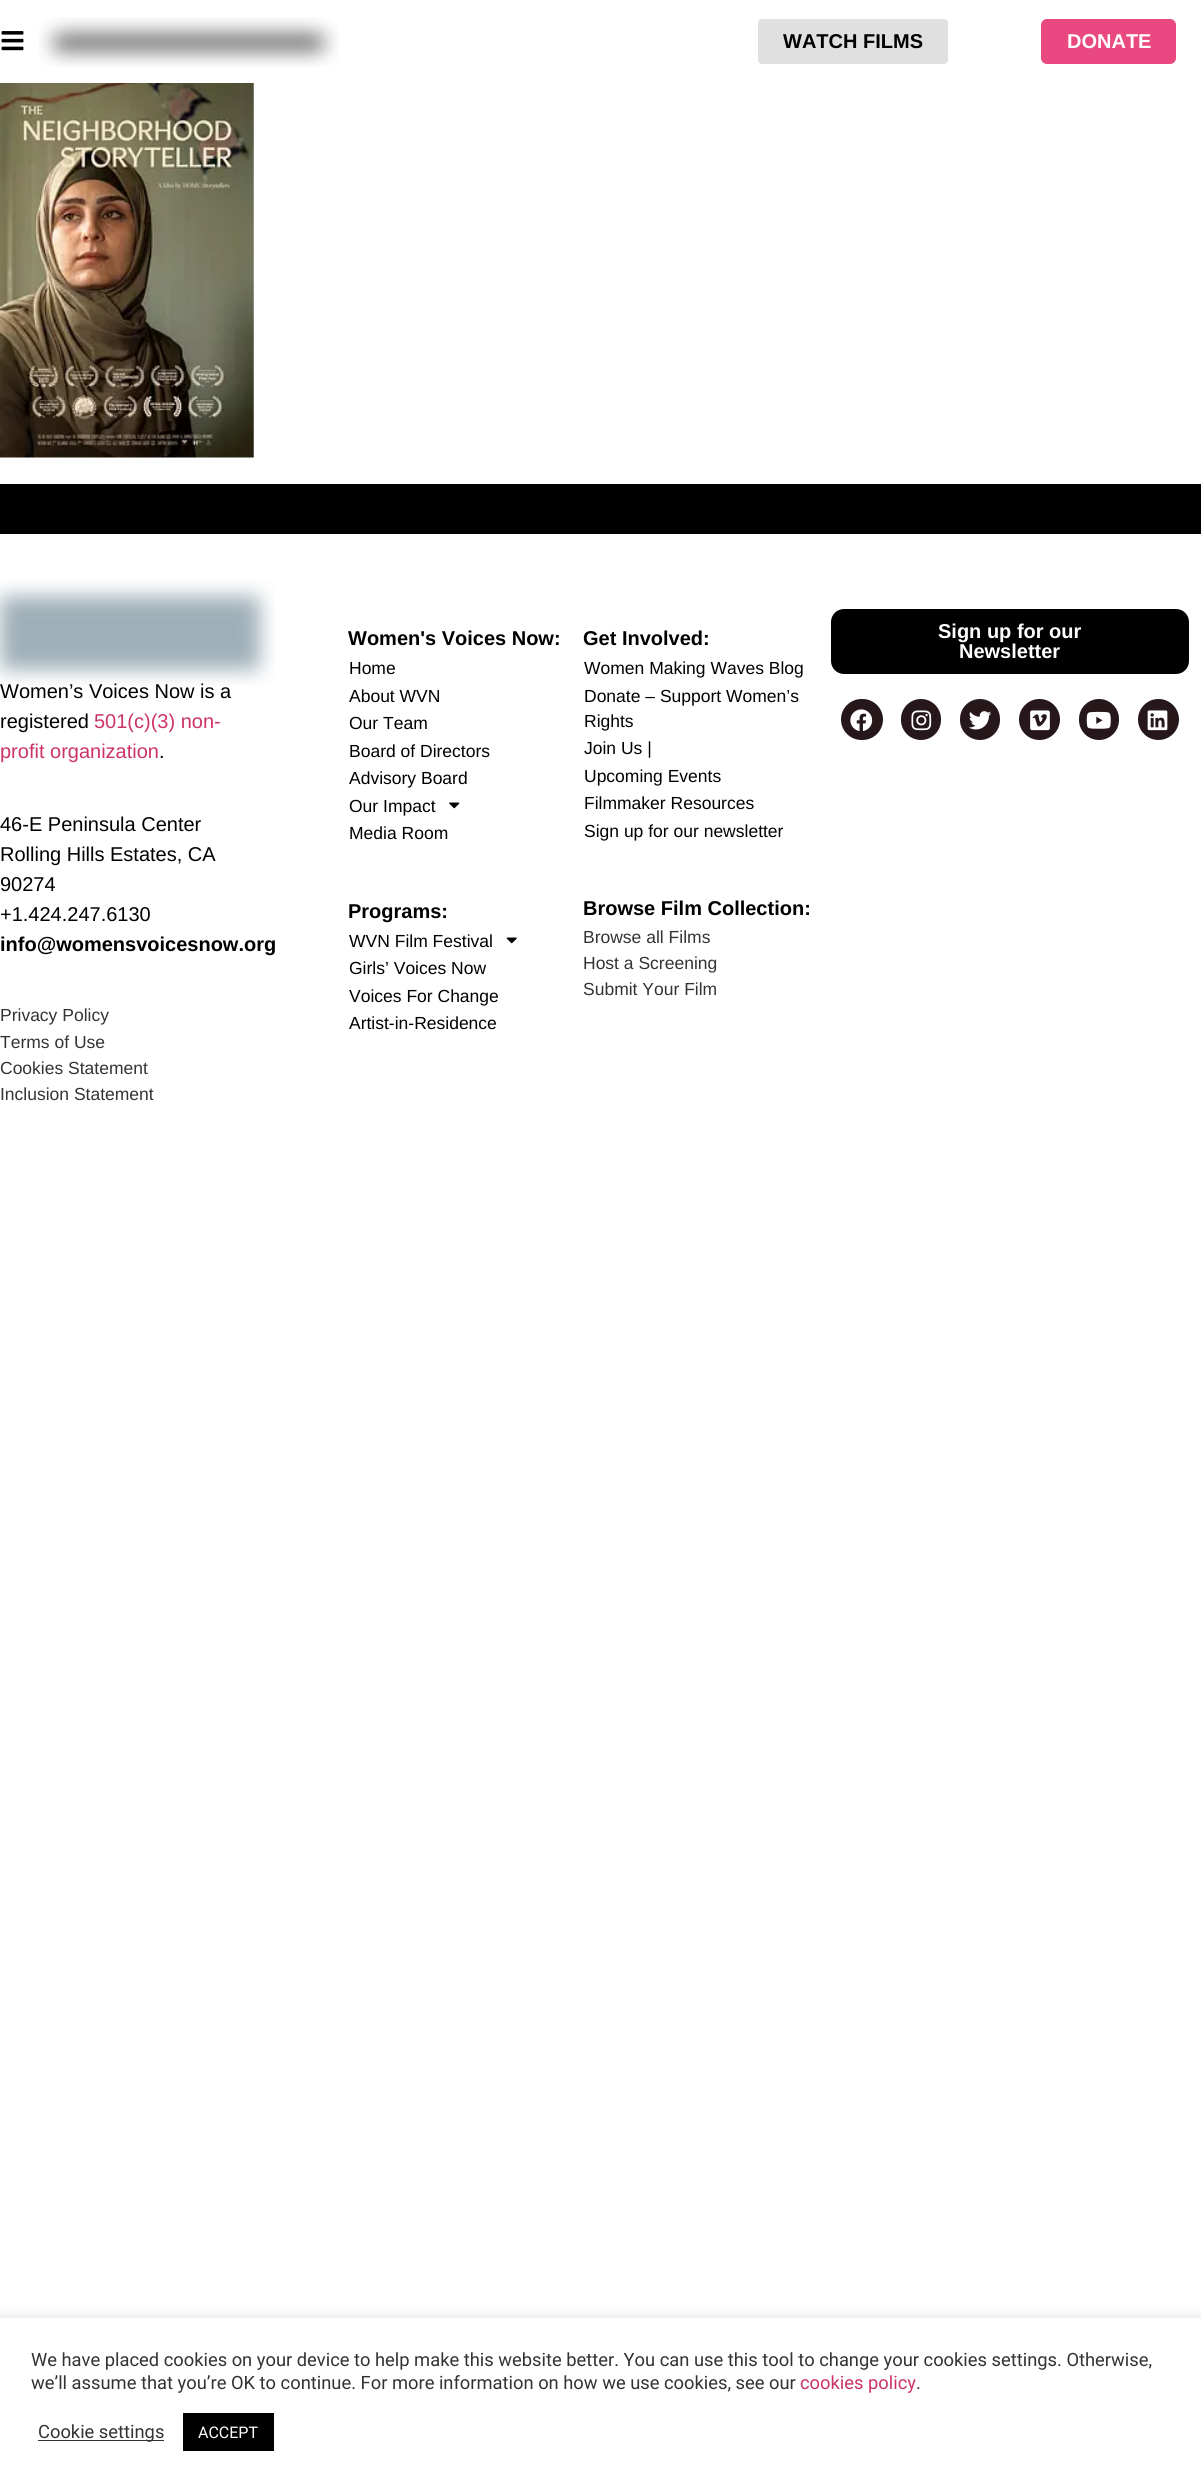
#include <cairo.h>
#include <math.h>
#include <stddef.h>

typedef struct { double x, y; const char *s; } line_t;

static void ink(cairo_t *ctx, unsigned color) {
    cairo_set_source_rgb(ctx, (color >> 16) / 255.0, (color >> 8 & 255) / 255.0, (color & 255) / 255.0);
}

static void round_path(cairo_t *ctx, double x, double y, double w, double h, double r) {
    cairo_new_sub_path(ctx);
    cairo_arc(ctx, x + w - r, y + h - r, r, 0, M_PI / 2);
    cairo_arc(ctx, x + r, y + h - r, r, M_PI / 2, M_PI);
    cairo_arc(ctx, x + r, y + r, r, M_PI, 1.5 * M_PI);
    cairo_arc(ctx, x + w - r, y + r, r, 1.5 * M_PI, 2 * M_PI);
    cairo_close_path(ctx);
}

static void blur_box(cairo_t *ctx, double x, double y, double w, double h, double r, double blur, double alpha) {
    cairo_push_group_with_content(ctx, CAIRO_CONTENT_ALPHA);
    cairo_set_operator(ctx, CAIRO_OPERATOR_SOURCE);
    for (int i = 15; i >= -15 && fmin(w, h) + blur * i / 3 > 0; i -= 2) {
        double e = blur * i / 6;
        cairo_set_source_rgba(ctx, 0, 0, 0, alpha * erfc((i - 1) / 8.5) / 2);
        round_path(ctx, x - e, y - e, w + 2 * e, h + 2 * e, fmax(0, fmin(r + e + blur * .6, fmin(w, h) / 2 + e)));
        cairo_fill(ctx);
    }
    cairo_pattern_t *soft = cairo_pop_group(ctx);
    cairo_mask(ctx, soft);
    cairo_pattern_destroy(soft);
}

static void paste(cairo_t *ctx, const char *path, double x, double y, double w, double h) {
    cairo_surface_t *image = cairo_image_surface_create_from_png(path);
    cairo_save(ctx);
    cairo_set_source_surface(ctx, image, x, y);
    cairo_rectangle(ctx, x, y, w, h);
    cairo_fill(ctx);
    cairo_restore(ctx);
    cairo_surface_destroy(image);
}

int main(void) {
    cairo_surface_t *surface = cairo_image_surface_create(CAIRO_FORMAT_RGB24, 1201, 2488);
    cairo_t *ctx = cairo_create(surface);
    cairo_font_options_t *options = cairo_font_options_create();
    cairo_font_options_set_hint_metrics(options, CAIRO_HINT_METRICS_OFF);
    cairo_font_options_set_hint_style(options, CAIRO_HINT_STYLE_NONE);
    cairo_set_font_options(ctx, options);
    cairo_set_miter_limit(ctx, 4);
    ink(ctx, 0xFFFFFF);
    cairo_paint(ctx);
    paste(ctx, "media/1.png", 1, 31, 23, 20);
    paste(ctx, "media/2.png", 39, 17, 300, 50);
    ink(ctx, 0xE0E0E0);
    round_path(ctx, 758, 19, 190, 45, 4);
    cairo_fill(ctx);
    cairo_select_font_face(ctx, "Liberation Sans", CAIRO_FONT_SLANT_NORMAL, CAIRO_FONT_WEIGHT_BOLD);
    cairo_set_font_size(ctx, 20);
    ink(ctx, 0x000000);
    cairo_move_to(ctx, 783, 48);
    cairo_show_text(ctx, "WATCH FILMS");
    ink(ctx, 0xEA4881);
    round_path(ctx, 1041, 19, 135, 45, 6);
    cairo_fill(ctx);
    ink(ctx, 0xFFFFFF);
    cairo_move_to(ctx, 1067, 48);
    cairo_show_text(ctx, "DONATE");
    paste(ctx, "media/3.png", 0, 83, 254, 375);
    ink(ctx, 0x000000);
    cairo_rectangle(ctx, 0, 484, 1201, 50);
    cairo_fill(ctx);
    paste(ctx, "media/4.png", 0, 580, 275, 106);
    cairo_select_font_face(ctx, "Liberation Sans", CAIRO_FONT_SLANT_NORMAL, CAIRO_FONT_WEIGHT_NORMAL);
    cairo_move_to(ctx, 0, 698);
    cairo_show_text(ctx, "Women’s Voices Now is a");
    cairo_move_to(ctx, 0, 728);
    cairo_show_text(ctx, "registered");
    ink(ctx, 0xCC3366);
    cairo_move_to(ctx, 94, 728);
    cairo_show_text(ctx, "501(c)(3) non-");
    cairo_move_to(ctx, 0, 758);
    cairo_show_text(ctx, "profit organization");
    ink(ctx, 0x000000);
    {
        static const line_t items[] = {
            {159, 758, "."},
            {0, 831, "46-E Peninsula Center"},
            {0, 861, "Rolling Hills Estates, CA"},
            {0, 891, "90274"},
            {0, 921, "+1.424.247.6130"},
        };
        for (size_t i = 0; i < sizeof items / sizeof *items; i++) {
            cairo_move_to(ctx, items[i].x, items[i].y);
            cairo_show_text(ctx, items[i].s);
        }
    }
    cairo_select_font_face(ctx, "Liberation Sans", CAIRO_FONT_SLANT_NORMAL, CAIRO_FONT_WEIGHT_BOLD);
    cairo_move_to(ctx, 0, 951);
    cairo_show_text(ctx, "info@womensvoicesnow.org");
    cairo_select_font_face(ctx, "Liberation Sans", CAIRO_FONT_SLANT_NORMAL, CAIRO_FONT_WEIGHT_NORMAL);
    cairo_set_font_size(ctx, 17.5);
    ink(ctx, 0x333333);
    {
        static const line_t items[] = {
            {0, 1021, "Privacy Policy"},
            {0, 1048, "Terms of Use"},
            {0, 1074, "Cookies Statement"},
            {0, 1100, "Inclusion Statement"},
        };
        for (size_t i = 0; i < sizeof items / sizeof *items; i++) {
            cairo_move_to(ctx, items[i].x, items[i].y);
            cairo_show_text(ctx, items[i].s);
        }
    }
    cairo_select_font_face(ctx, "Liberation Sans", CAIRO_FONT_SLANT_NORMAL, CAIRO_FONT_WEIGHT_BOLD);
    cairo_set_font_size(ctx, 20);
    ink(ctx, 0x000000);
    cairo_move_to(ctx, 348, 645);
    cairo_show_text(ctx, "Women's Voices Now:");
    cairo_select_font_face(ctx, "Liberation Sans", CAIRO_FONT_SLANT_NORMAL, CAIRO_FONT_WEIGHT_NORMAL);
    cairo_set_font_size(ctx, 17.5);
    {
        static const line_t items[] = {
            {349, 674, "Home"},
            {349, 702, "About WVN"},
            {349, 729, "Our Team"},
            {349, 757, "Board of Directors"},
            {349, 784, "Advisory Board"},
            {349, 812, "Our Impact"},
        };
        for (size_t i = 0; i < sizeof items / sizeof *items; i++) {
            cairo_move_to(ctx, items[i].x, items[i].y);
            cairo_show_text(ctx, items[i].s);
        }
    }
    paste(ctx, "media/5.png", 449, 802, 11, 7);
    cairo_move_to(ctx, 349, 839);
    cairo_show_text(ctx, "Media Room");
    cairo_select_font_face(ctx, "Liberation Sans", CAIRO_FONT_SLANT_NORMAL, CAIRO_FONT_WEIGHT_BOLD);
    cairo_set_font_size(ctx, 20);
    cairo_move_to(ctx, 348, 918);
    cairo_show_text(ctx, "Programs:");
    cairo_select_font_face(ctx, "Liberation Sans", CAIRO_FONT_SLANT_NORMAL, CAIRO_FONT_WEIGHT_NORMAL);
    cairo_set_font_size(ctx, 17.5);
    cairo_move_to(ctx, 349, 947);
    cairo_show_text(ctx, "WVN Film Festival");
    paste(ctx, "media/6.png", 506, 937, 11, 7);
    {
        static const line_t items[] = {
            {349, 974, "Girls’ Voices Now"},
            {349, 1002, "Voices For Change"},
            {349, 1029, "Artist-in-Residence"},
        };
        for (size_t i = 0; i < sizeof items / sizeof *items; i++) {
            cairo_move_to(ctx, items[i].x, items[i].y);
            cairo_show_text(ctx, items[i].s);
        }
    }
    cairo_select_font_face(ctx, "Liberation Sans", CAIRO_FONT_SLANT_NORMAL, CAIRO_FONT_WEIGHT_BOLD);
    cairo_set_font_size(ctx, 20);
    cairo_move_to(ctx, 583, 645);
    cairo_show_text(ctx, "Get Involved:");
    cairo_select_font_face(ctx, "Liberation Sans", CAIRO_FONT_SLANT_NORMAL, CAIRO_FONT_WEIGHT_NORMAL);
    cairo_set_font_size(ctx, 17.5);
    {
        static const line_t items[] = {
            {584, 674, "Women Making Waves Blog"},
            {584, 702, "Donate – Support Women’s"},
            {584, 727, "Rights"},
            {584, 754, "Join Us |"},
            {584, 782, "Upcoming Events"},
            {584, 809, "Filmmaker Resources"},
            {584, 837, "Sign up for our newsletter"},
        };
        for (size_t i = 0; i < sizeof items / sizeof *items; i++) {
            cairo_move_to(ctx, items[i].x, items[i].y);
            cairo_show_text(ctx, items[i].s);
        }
    }
    cairo_select_font_face(ctx, "Liberation Sans", CAIRO_FONT_SLANT_NORMAL, CAIRO_FONT_WEIGHT_BOLD);
    cairo_set_font_size(ctx, 20);
    cairo_move_to(ctx, 583, 915);
    cairo_show_text(ctx, "Browse Film Collection:");
    cairo_select_font_face(ctx, "Liberation Sans", CAIRO_FONT_SLANT_NORMAL, CAIRO_FONT_WEIGHT_NORMAL);
    cairo_set_font_size(ctx, 17.5);
    ink(ctx, 0x333333);
    {
        static const line_t items[] = {
            {583, 943, "Browse all Films"},
            {583, 969, "Host a Screening"},
            {583, 995, "Submit Your Film"},
        };
        for (size_t i = 0; i < sizeof items / sizeof *items; i++) {
            cairo_move_to(ctx, items[i].x, items[i].y);
            cairo_show_text(ctx, items[i].s);
        }
    }
    ink(ctx, 0x000000);
    round_path(ctx, 831, 609, 358, 65, 13);
    cairo_fill(ctx);
    cairo_select_font_face(ctx, "Liberation Sans", CAIRO_FONT_SLANT_NORMAL, CAIRO_FONT_WEIGHT_BOLD);
    cairo_set_font_size(ctx, 20);
    ink(ctx, 0xFFFFFF);
    cairo_move_to(ctx, 938, 638);
    cairo_show_text(ctx, "Sign up for our");
    cairo_move_to(ctx, 959, 658);
    cairo_show_text(ctx, "Newsletter");
    ink(ctx, 0x26171B);
    round_path(ctx, 841, 699, 42, 41, 20.5);
    cairo_fill(ctx);
    paste(ctx, "media/7.png", 850, 709, 23, 22);
    round_path(ctx, 901, 699, 40, 41, 20);
    cairo_fill(ctx);
    paste(ctx, "media/8.png", 911, 710, 21, 21);
    round_path(ctx, 960, 699, 40, 41, 20);
    cairo_fill(ctx);
    paste(ctx, "media/9.png", 969, 711, 23, 19);
    cairo_arc(ctx, 1039.5, 719.5, 20.5, 0, 2 * M_PI);
    cairo_fill(ctx);
    paste(ctx, "media/10.png", 1030, 710, 20, 21);
    round_path(ctx, 1079, 699, 40, 41, 20);
    cairo_fill(ctx);
    paste(ctx, "media/11.png", 1086, 711, 25, 18);
    cairo_arc(ctx, 1158.5, 719.5, 20.5, 0, 2 * M_PI);
    cairo_fill(ctx);
    paste(ctx, "media/12.png", 1147, 710, 21, 21);
    cairo_save(ctx);
    cairo_rectangle(ctx, 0, 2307, 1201, 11);
    cairo_clip(ctx);
    ink(ctx, 0xACABAB);
    blur_box(ctx, 0, 2316, 1201, 172, 0, 6, 0.3);
    cairo_restore(ctx);
    cairo_select_font_face(ctx, "Roboto", CAIRO_FONT_SLANT_NORMAL, CAIRO_FONT_WEIGHT_NORMAL);
    cairo_set_font_size(ctx, 18.33);
    ink(ctx, 0x333333);
    cairo_move_to(ctx, 31, 2366);
    cairo_show_text(ctx, "We have placed cookies on your device to help make this website better. You can use this tool to change your cookies settings. Otherwise,");
    cairo_move_to(ctx, 31, 2389);
    cairo_show_text(ctx, "we’ll assume that you’re OK to continue. For more information on how we use cookies, see our");
    ink(ctx, 0xCC3366);
    cairo_move_to(ctx, 800, 2389);
    cairo_show_text(ctx, "cookies policy");
    ink(ctx, 0x333333);
    cairo_move_to(ctx, 916, 2389);
    cairo_show_text(ctx, ".");
    cairo_rectangle(ctx, 38, 2440, 126, 1);
    cairo_fill(ctx);
    cairo_move_to(ctx, 38, 2438);
    cairo_show_text(ctx, "Cookie settings");
    ink(ctx, 0x000000);
    cairo_rectangle(ctx, 183, 2413, 91, 38);
    cairo_fill(ctx);
    cairo_set_font_size(ctx, 16);
    ink(ctx, 0xFFFFFF);
    cairo_move_to(ctx, 198, 2438);
    cairo_show_text(ctx, "ACCEPT");
    cairo_surface_write_to_png(surface, "image.png");
    cairo_font_options_destroy(options);
    cairo_destroy(ctx);
    cairo_surface_destroy(surface);
    return 0;
}
